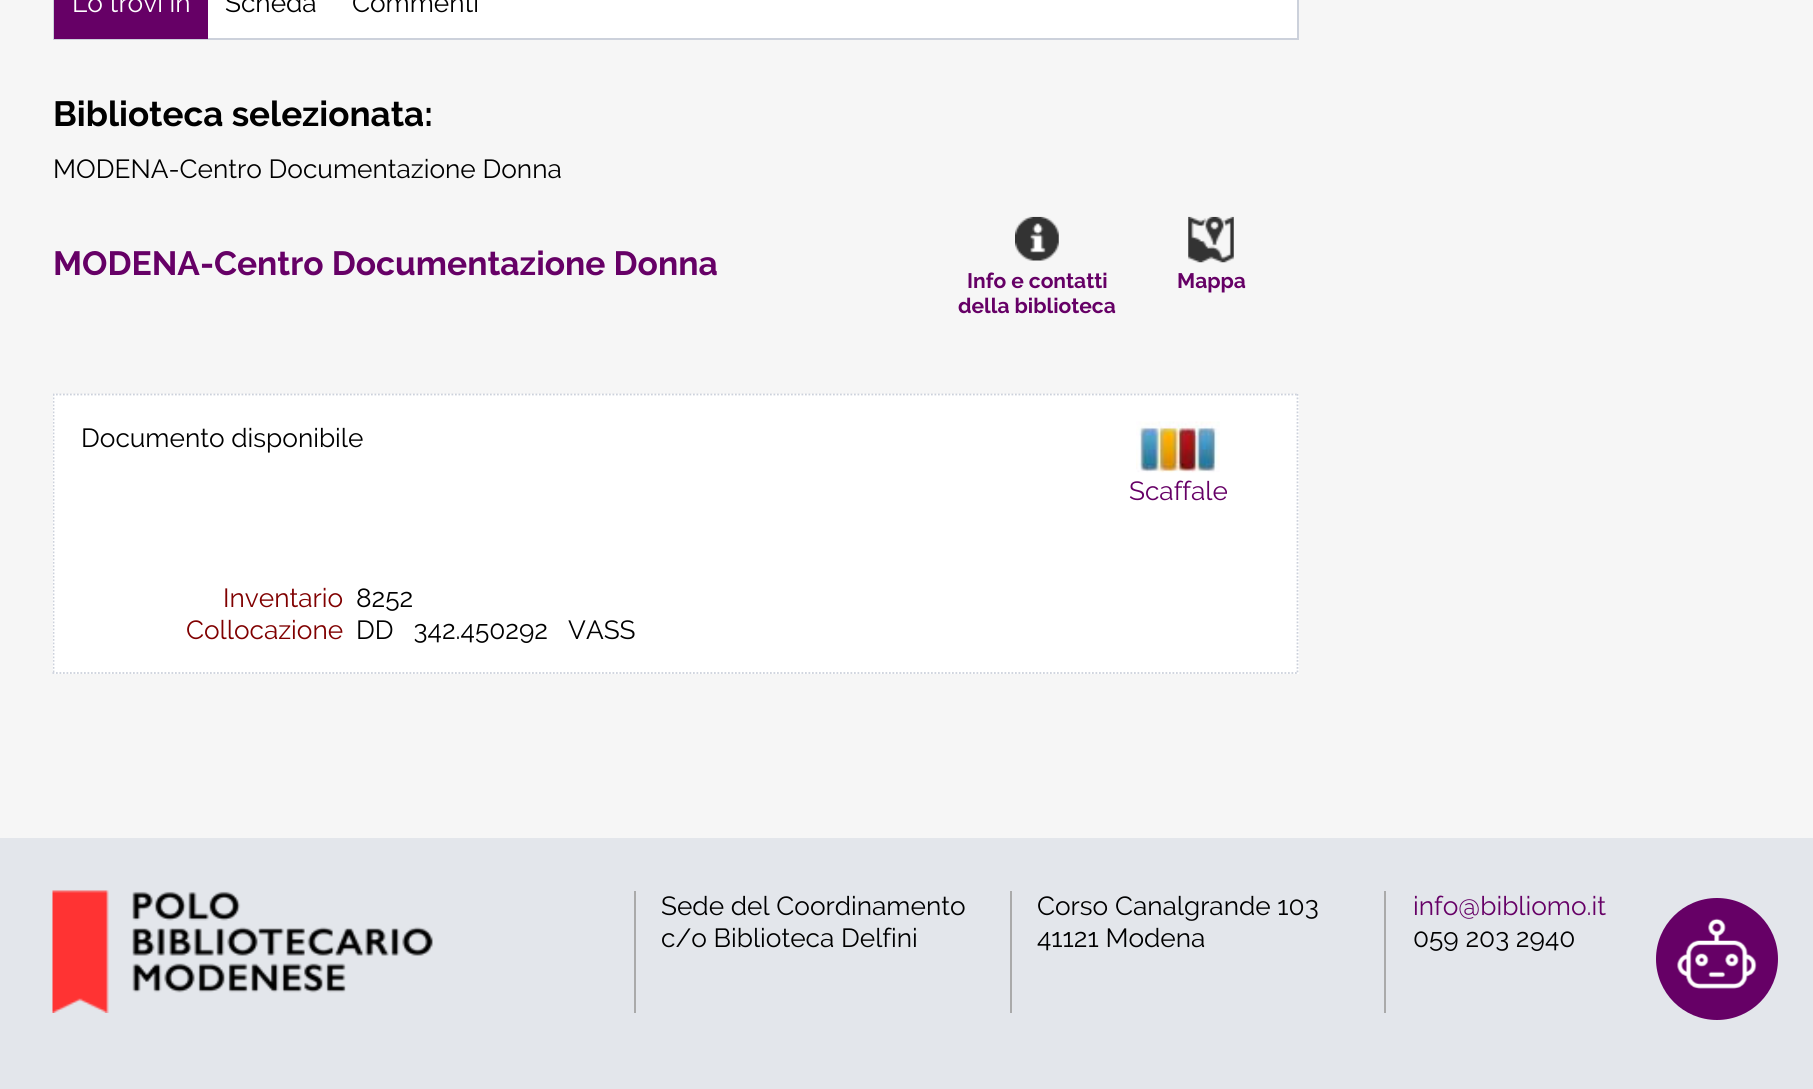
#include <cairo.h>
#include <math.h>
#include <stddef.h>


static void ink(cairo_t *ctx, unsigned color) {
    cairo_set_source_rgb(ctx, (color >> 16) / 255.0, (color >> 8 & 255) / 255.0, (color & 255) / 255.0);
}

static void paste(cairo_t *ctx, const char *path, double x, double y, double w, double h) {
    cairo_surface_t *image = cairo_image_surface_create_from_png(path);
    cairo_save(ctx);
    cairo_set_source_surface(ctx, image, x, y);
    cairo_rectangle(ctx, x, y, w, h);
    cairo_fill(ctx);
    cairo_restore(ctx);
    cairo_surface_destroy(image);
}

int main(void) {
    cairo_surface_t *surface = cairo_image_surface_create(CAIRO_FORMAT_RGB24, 1813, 1089);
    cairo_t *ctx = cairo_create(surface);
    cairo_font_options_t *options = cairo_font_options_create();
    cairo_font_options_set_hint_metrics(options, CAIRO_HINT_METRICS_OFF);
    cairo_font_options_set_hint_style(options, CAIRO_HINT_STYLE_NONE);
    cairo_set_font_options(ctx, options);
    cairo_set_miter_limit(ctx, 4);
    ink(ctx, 0xE3E6EB);
    cairo_paint(ctx);
    ink(ctx, 0xF6F6F6);
    cairo_rectangle(ctx, 0, 0, 1813, 838);
    cairo_fill(ctx);
    ink(ctx, 0xFFFFFF);
    cairo_rectangle(ctx, 208, 0, 1089, 38);
    cairo_fill(ctx);
    cairo_rectangle(ctx, 54, -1, 1244, 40);
    ink(ctx, 0xCCD1DB);
    cairo_stroke(ctx);
    ink(ctx, 0x660066);
    cairo_rectangle(ctx, 54, 0, 154, 39);
    cairo_fill(ctx);
    cairo_select_font_face(ctx, "Raleway", CAIRO_FONT_SLANT_NORMAL, CAIRO_FONT_WEIGHT_NORMAL);
    cairo_set_font_size(ctx, 26.25);
    ink(ctx, 0xFFFFFF);
    cairo_move_to(ctx, 72, 12);
    cairo_show_text(ctx, "Lo trovi in");
    ink(ctx, 0x000000);
    cairo_move_to(ctx, 225, 12);
    cairo_show_text(ctx, "Scheda");
    cairo_move_to(ctx, 352, 12);
    cairo_show_text(ctx, "Commenti");
    cairo_select_font_face(ctx, "Raleway", CAIRO_FONT_SLANT_NORMAL, CAIRO_FONT_WEIGHT_BOLD);
    cairo_set_font_size(ctx, 35);
    cairo_move_to(ctx, 53, 126);
    cairo_show_text(ctx, "Biblioteca selezionata:");
    cairo_select_font_face(ctx, "Raleway", CAIRO_FONT_SLANT_NORMAL, CAIRO_FONT_WEIGHT_NORMAL);
    cairo_set_font_size(ctx, 26.25);
    cairo_move_to(ctx, 53, 178);
    cairo_show_text(ctx, "MODENA-Centro Documentazione Donna");
    cairo_select_font_face(ctx, "Raleway", CAIRO_FONT_SLANT_NORMAL, CAIRO_FONT_WEIGHT_BOLD);
    cairo_set_font_size(ctx, 33.6);
    ink(ctx, 0x660066);
    cairo_move_to(ctx, 53, 275);
    cairo_show_text(ctx, "MODENA-Centro Documentazione Donna");
    paste(ctx, "media/1.png", 1015, 216, 44, 45);
    cairo_set_font_size(ctx, 21);
    cairo_move_to(ctx, 967, 288);
    cairo_show_text(ctx, "Info e contatti");
    cairo_move_to(ctx, 958, 313);
    cairo_show_text(ctx, "della biblioteca");
    paste(ctx, "media/2.png", 1188, 216, 46, 47);
    cairo_move_to(ctx, 1177, 288);
    cairo_show_text(ctx, "Mappa");
    ink(ctx, 0xFFFFFF);
    cairo_rectangle(ctx, 53, 394, 1246, 280);
    cairo_fill(ctx);
    cairo_save(ctx);
    cairo_rectangle(ctx, 53, 40, 1246, 693);
    cairo_clip(ctx);
    cairo_new_path(ctx);
    cairo_move_to(ctx, 52.5, 394.5);
    cairo_line_to(ctx, 1298.5, 394.5);
    ink(ctx, 0xCCD1DB);
    cairo_set_line_width(ctx, 1.8);
    cairo_set_dash(ctx, (double[]){1.75, 1.75}, 2, 0);
    cairo_stroke(ctx);
    cairo_restore(ctx);
    cairo_new_path(ctx);
    cairo_move_to(ctx, 1297.5, 394);
    cairo_line_to(ctx, 1297.5, 674);
    ink(ctx, 0xCCD1DB);
    cairo_set_line_width(ctx, 1.8);
    cairo_set_dash(ctx, (double[]){1.75, 1.75}, 2, 0);
    cairo_stroke(ctx);
    cairo_new_path(ctx);
    cairo_move_to(ctx, 52.5, 673);
    cairo_line_to(ctx, 1298.5, 673);
    cairo_stroke(ctx);
    cairo_save(ctx);
    cairo_rectangle(ctx, 53, 40, 1246, 693);
    cairo_clip(ctx);
    cairo_new_path(ctx);
    cairo_move_to(ctx, 53.5, 394);
    cairo_line_to(ctx, 53.5, 674);
    cairo_stroke(ctx);
    cairo_restore(ctx);
    cairo_select_font_face(ctx, "Raleway", CAIRO_FONT_SLANT_NORMAL, CAIRO_FONT_WEIGHT_NORMAL);
    cairo_set_font_size(ctx, 26.25);
    ink(ctx, 0x000000);
    cairo_move_to(ctx, 81, 447);
    cairo_show_text(ctx, "Documento disponibile");
    ink(ctx, 0x800000);
    cairo_move_to(ctx, 223, 607);
    cairo_show_text(ctx, "Inventario");
    ink(ctx, 0x000000);
    cairo_move_to(ctx, 356, 607);
    cairo_show_text(ctx, "8252");
    ink(ctx, 0x800000);
    cairo_move_to(ctx, 186, 639);
    cairo_show_text(ctx, "Collocazione");
    ink(ctx, 0x000000);
    cairo_move_to(ctx, 356, 639);
    cairo_show_text(ctx, "DD   342.450292   VASS");
    paste(ctx, "media/3.png", 1136, 421, 84, 52);
    ink(ctx, 0x660066);
    cairo_move_to(ctx, 1129, 500);
    cairo_show_text(ctx, "Scaffale");
    paste(ctx, "media/4.png", 52, 890, 381, 123);
    ink(ctx, 0xAAAAAA);
    cairo_rectangle(ctx, 634, 891, 2, 122);
    cairo_fill(ctx);
    ink(ctx, 0x000000);
    cairo_move_to(ctx, 661, 915);
    cairo_show_text(ctx, "Sede del Coordinamento");
    cairo_move_to(ctx, 661, 947);
    cairo_show_text(ctx, "c/o Biblioteca Delfini");
    ink(ctx, 0xAAAAAA);
    cairo_rectangle(ctx, 1010, 891, 2, 122);
    cairo_fill(ctx);
    ink(ctx, 0x000000);
    cairo_move_to(ctx, 1037, 915);
    cairo_show_text(ctx, "Corso Canalgrande 103");
    cairo_move_to(ctx, 1037, 947);
    cairo_show_text(ctx, "41121 Modena");
    ink(ctx, 0xAAAAAA);
    cairo_rectangle(ctx, 1384, 891, 2, 122);
    cairo_fill(ctx);
    ink(ctx, 0x660066);
    cairo_move_to(ctx, 1413, 915);
    cairo_show_text(ctx, "info@bibliomo.it");
    ink(ctx, 0x000000);
    cairo_move_to(ctx, 1413, 947);
    cairo_show_text(ctx, "059 203 2940");
    ink(ctx, 0x660066);
    cairo_new_path(ctx);
    cairo_arc(ctx, 1717, 959, 61, 0, 2 * M_PI);
    cairo_fill(ctx);
    paste(ctx, "media/5.png", 1677, 918, 80, 71);
    cairo_surface_write_to_png(surface, "image.png");
    cairo_font_options_destroy(options);
    cairo_destroy(ctx);
    cairo_surface_destroy(surface);
    return 0;
}
